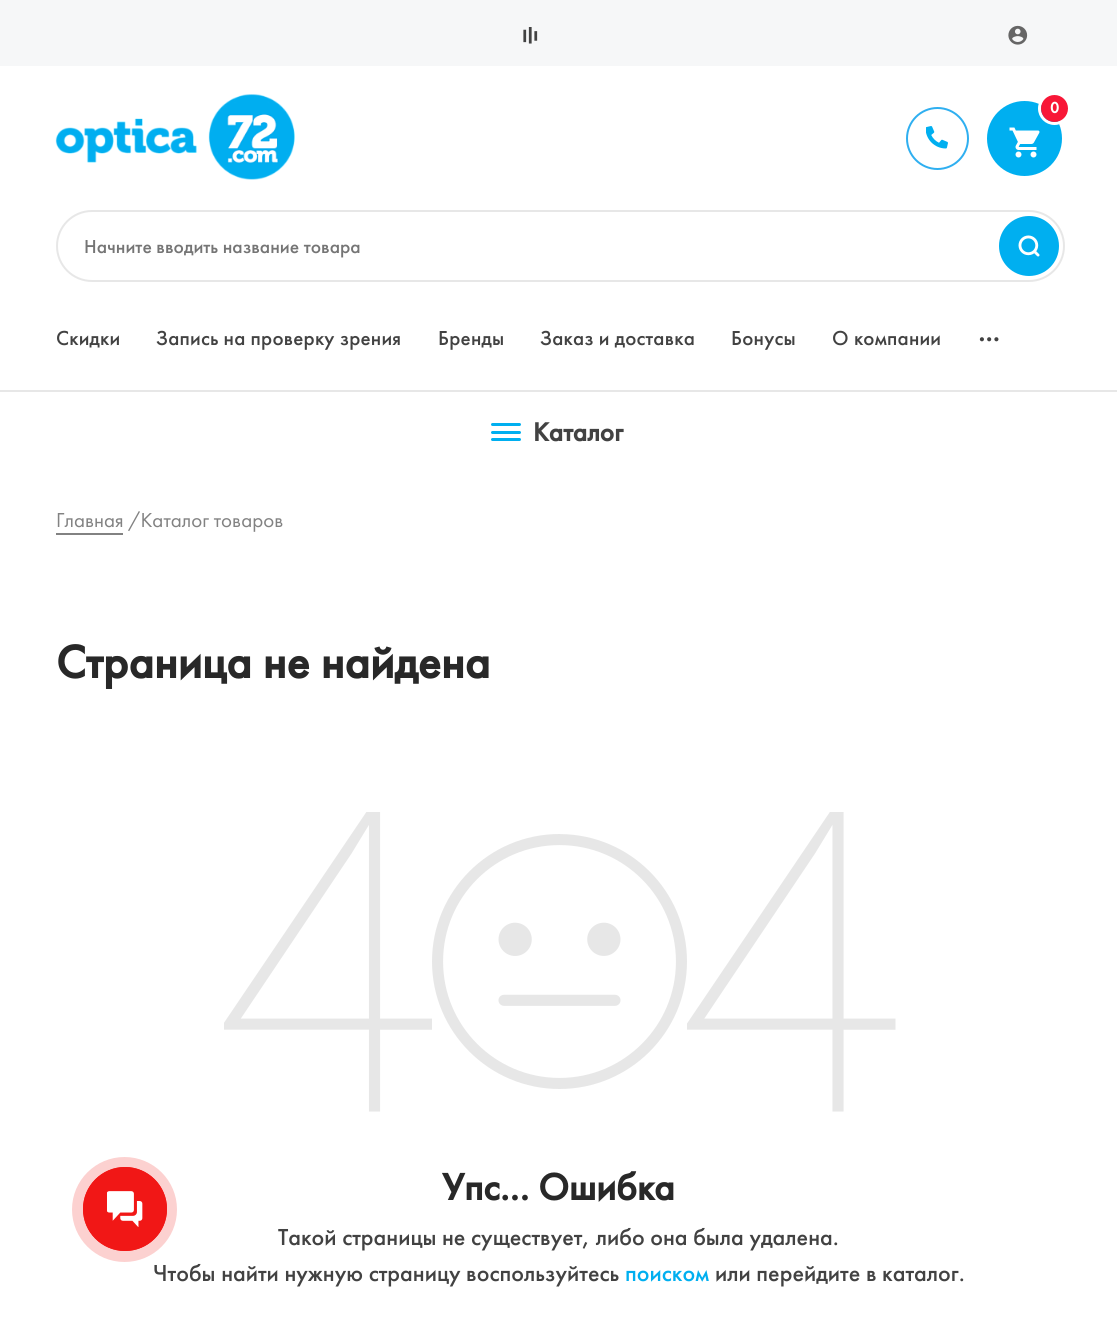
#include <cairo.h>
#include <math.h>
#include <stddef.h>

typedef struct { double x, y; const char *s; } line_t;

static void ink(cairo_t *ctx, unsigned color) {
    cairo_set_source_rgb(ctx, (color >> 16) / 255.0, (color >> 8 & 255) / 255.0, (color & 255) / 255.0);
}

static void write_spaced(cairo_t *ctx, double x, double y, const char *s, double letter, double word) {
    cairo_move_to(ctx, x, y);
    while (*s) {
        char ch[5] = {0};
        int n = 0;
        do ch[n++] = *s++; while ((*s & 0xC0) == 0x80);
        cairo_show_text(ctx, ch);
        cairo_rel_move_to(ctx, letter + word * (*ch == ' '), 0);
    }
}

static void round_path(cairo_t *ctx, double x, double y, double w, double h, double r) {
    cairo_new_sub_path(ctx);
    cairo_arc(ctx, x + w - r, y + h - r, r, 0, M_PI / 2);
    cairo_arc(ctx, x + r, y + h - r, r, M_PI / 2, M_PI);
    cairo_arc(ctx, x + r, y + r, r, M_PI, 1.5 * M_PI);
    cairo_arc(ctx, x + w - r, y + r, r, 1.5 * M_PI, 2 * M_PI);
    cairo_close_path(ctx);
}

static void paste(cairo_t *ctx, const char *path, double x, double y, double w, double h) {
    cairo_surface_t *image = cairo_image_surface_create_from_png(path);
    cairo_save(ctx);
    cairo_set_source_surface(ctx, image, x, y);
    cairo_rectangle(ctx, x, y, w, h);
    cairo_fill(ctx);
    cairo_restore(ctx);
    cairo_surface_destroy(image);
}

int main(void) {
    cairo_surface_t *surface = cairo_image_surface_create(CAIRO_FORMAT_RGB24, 1117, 1333);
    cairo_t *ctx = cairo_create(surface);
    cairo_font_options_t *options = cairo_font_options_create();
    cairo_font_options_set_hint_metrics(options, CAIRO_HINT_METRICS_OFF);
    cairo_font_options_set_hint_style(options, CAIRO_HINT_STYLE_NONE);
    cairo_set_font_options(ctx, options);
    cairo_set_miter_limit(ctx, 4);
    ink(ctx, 0xFFFFFF);
    cairo_paint(ctx);
    ink(ctx, 0xF6F7F8);
    cairo_rectangle(ctx, 0, 0, 1117, 66);
    cairo_fill(ctx);
    paste(ctx, "media/1.png", 523, 27, 15, 17);
    paste(ctx, "media/2.png", 1008, 25, 20, 20);
    paste(ctx, "media/3.png", 55, 94, 240, 86);
    cairo_arc(ctx, 937.5, 138.5, 30.5, 0, 2 * M_PI);
    ink(ctx, 0x2FAFF0);
    cairo_stroke(ctx);
    paste(ctx, "media/4.png", 926, 126, 22, 23);
    ink(ctx, 0x00AFF0);
    cairo_arc(ctx, 1024.5, 138.5, 37.5, 0, 2 * M_PI);
    cairo_fill(ctx);
    cairo_arc(ctx, 1054.5, 108.5, 15, 0, 2 * M_PI);
    ink(ctx, 0xFFFFFF);
    cairo_set_line_width(ctx, 3);
    cairo_stroke(ctx);
    ink(ctx, 0xF81737);
    cairo_arc(ctx, 1054.5, 108.5, 13.5, 0, 2 * M_PI);
    cairo_fill(ctx);
    cairo_select_font_face(ctx, "Futura PT", CAIRO_FONT_SLANT_NORMAL, CAIRO_FONT_WEIGHT_BOLD);
    cairo_set_font_size(ctx, 16);
    ink(ctx, 0xFFFFFF);
    cairo_move_to(ctx, 1050, 113);
    cairo_show_text(ctx, "0");
    paste(ctx, "media/5.png", 1009, 127, 31, 31);
    round_path(ctx, 57, 211, 1007, 70, 35);
    ink(ctx, 0xE7E7E7);
    cairo_set_line_width(ctx, 2);
    cairo_stroke(ctx);
    cairo_select_font_face(ctx, "Futura PT Medium", CAIRO_FONT_SLANT_NORMAL, CAIRO_FONT_WEIGHT_NORMAL);
    cairo_set_font_size(ctx, 19.5);
    ink(ctx, 0x757575);
    cairo_move_to(ctx, 84, 253);
    cairo_show_text(ctx, "Начните вводить название товара");
    ink(ctx, 0x00AFF0);
    cairo_new_path(ctx);
    cairo_arc(ctx, 1029, 246, 30, 0, 2 * M_PI);
    cairo_fill(ctx);
    paste(ctx, "media/6.png", 1018, 235, 22, 22);
    cairo_set_font_size(ctx, 21);
    ink(ctx, 0x424242);
    {
        static const line_t items[] = {
            {56, 345, "Скидки"},
            {156, 345, "Запись на проверку зрения"},
            {438, 345, "Бренды"},
            {540, 345, "Заказ и доставка"},
            {731, 345, "Бонусы"},
            {832, 345, "О компании"},
        };
        for (size_t i = 0; i < sizeof items / sizeof *items; i++) {
            write_spaced(ctx, items[i].x, items[i].y, items[i].s, 0.2, 0);
        }
    }
    cairo_select_font_face(ctx, "Futura PT", CAIRO_FONT_SLANT_NORMAL, CAIRO_FONT_WEIGHT_BOLD);
    cairo_set_font_size(ctx, 28);
    write_spaced(ctx, 978, 341, "...", 0.2, 0);
    ink(ctx, 0xE7E7E7);
    cairo_rectangle(ctx, 0, 390, 1117, 2);
    cairo_fill(ctx);
    ink(ctx, 0x00AFF0);
    round_path(ctx, 491, 423, 30, 3, 1.5);
    cairo_fill(ctx);
    round_path(ctx, 491, 431, 30, 3, 1.5);
    cairo_fill(ctx);
    round_path(ctx, 491, 438, 30, 3, 1.5);
    cairo_fill(ctx);
    cairo_set_font_size(ctx, 27);
    ink(ctx, 0x424242);
    cairo_move_to(ctx, 533, 441);
    cairo_show_text(ctx, "Каталог");
    cairo_select_font_face(ctx, "Futura PT", CAIRO_FONT_SLANT_NORMAL, CAIRO_FONT_WEIGHT_NORMAL);
    cairo_set_font_size(ctx, 21);
    ink(ctx, 0x828282);
    cairo_move_to(ctx, 56, 527);
    cairo_show_text(ctx, "Главная");
    cairo_rectangle(ctx, 56, 533, 67, 2);
    cairo_fill(ctx);
    cairo_move_to(ctx, 128, 527);
    cairo_show_text(ctx, "/Каталог товаров");
    cairo_select_font_face(ctx, "Futura PT", CAIRO_FONT_SLANT_NORMAL, CAIRO_FONT_WEIGHT_BOLD);
    cairo_set_font_size(ctx, 48);
    ink(ctx, 0x282828);
    cairo_move_to(ctx, 56, 678);
    cairo_show_text(ctx, "Страница не найдена");
    paste(ctx, "media/7.png", 224, 812, 672, 300);
    cairo_set_font_size(ctx, 39);
    cairo_move_to(ctx, 442, 1200);
    cairo_show_text(ctx, "Упс... Ошибка");
    cairo_select_font_face(ctx, "Futura PT Medium", CAIRO_FONT_SLANT_NORMAL, CAIRO_FONT_WEIGHT_NORMAL);
    cairo_set_font_size(ctx, 24);
    ink(ctx, 0x424242);
    cairo_move_to(ctx, 278, 1245);
    cairo_show_text(ctx, "Такой страницы не существует, либо она была удалена.");
    cairo_move_to(ctx, 153, 1281);
    cairo_show_text(ctx, "Чтобы найти нужную страницу воспользуйтесь");
    ink(ctx, 0x00AFF0);
    cairo_move_to(ctx, 625, 1281);
    cairo_show_text(ctx, "поиском");
    ink(ctx, 0x424242);
    cairo_move_to(ctx, 715, 1281);
    cairo_show_text(ctx, "или перейдите в каталог.");
    ink(ctx, 0xFCD1D0);
    cairo_new_path(ctx);
    cairo_arc(ctx, 124.5, 1209.5, 52.5, 0, 2 * M_PI);
    cairo_fill(ctx);
    cairo_arc(ctx, 125, 1209, 41.5, 0, 2 * M_PI);
    ink(ctx, 0xF11716);
    cairo_set_line_width(ctx, 1);
    cairo_stroke(ctx);
    cairo_arc(ctx, 125, 1209, 42, 0, 2 * M_PI);
    cairo_fill(ctx);
    paste(ctx, "media/8.png", 107, 1191, 36, 36);
    cairo_surface_write_to_png(surface, "image.png");
    cairo_font_options_destroy(options);
    cairo_destroy(ctx);
    cairo_surface_destroy(surface);
    return 0;
}
